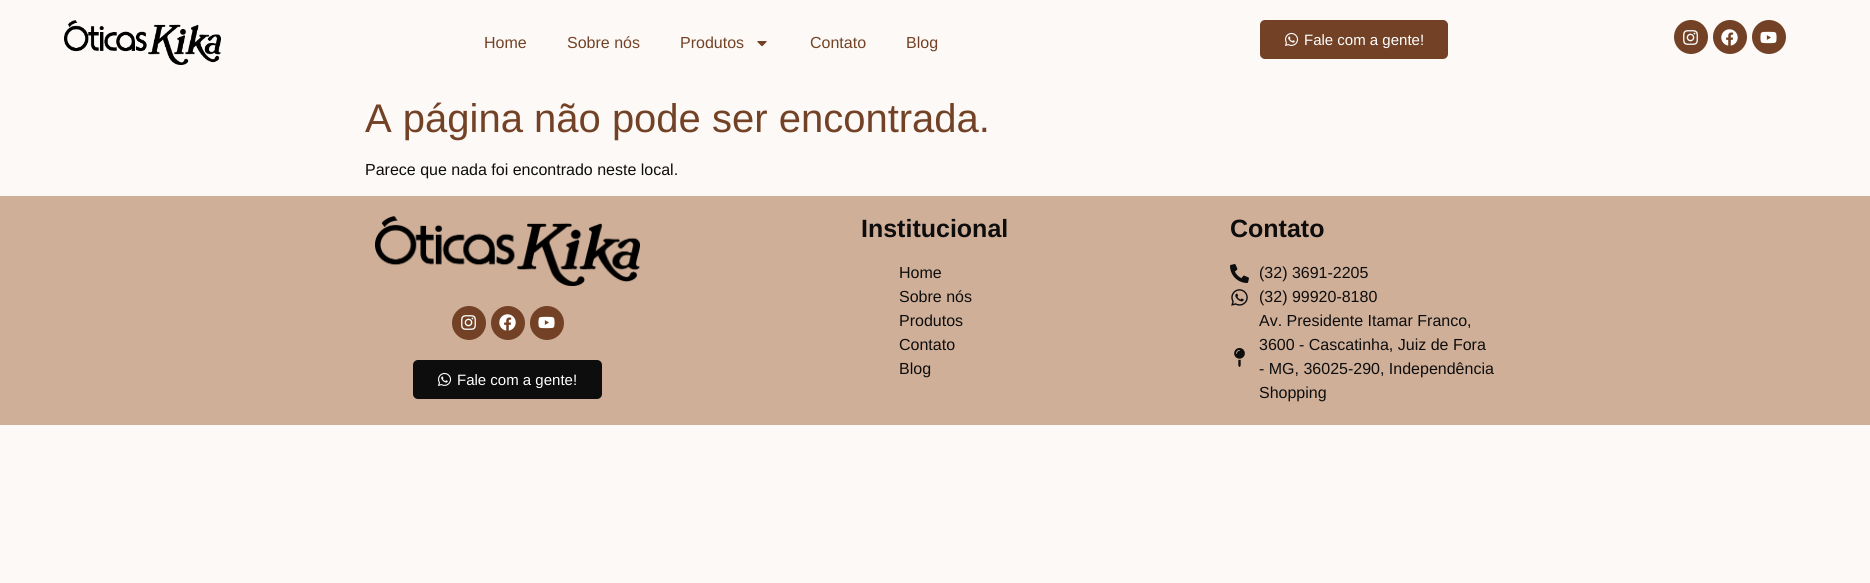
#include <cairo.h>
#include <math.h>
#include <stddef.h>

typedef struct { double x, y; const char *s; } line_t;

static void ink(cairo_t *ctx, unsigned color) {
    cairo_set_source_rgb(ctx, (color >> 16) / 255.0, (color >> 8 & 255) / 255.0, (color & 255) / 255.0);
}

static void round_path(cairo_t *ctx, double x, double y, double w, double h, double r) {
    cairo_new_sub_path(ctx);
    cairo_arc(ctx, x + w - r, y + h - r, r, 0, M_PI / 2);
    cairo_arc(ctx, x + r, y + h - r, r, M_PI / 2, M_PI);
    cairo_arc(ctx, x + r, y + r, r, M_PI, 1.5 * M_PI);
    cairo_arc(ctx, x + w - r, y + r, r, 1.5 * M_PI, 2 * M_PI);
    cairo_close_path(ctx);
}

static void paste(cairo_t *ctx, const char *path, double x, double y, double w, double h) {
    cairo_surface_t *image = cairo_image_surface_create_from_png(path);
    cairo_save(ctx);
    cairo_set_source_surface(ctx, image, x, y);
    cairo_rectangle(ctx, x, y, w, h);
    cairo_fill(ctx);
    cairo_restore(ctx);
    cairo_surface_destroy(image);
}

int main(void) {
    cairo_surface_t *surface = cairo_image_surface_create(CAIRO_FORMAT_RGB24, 1870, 583);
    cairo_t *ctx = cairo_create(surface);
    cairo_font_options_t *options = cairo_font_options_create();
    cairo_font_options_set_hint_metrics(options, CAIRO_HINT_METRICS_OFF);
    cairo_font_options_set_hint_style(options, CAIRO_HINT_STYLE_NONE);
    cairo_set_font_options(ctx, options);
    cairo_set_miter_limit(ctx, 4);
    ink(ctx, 0xFCF9F6);
    cairo_paint(ctx);
    paste(ctx, "media/1.png", 64, 20, 157, 45);
    cairo_select_font_face(ctx, "Liberation Sans", CAIRO_FONT_SLANT_NORMAL, CAIRO_FONT_WEIGHT_NORMAL);
    cairo_set_font_size(ctx, 16);
    ink(ctx, 0x734226);
    {
        static const line_t items[] = {
            {484, 48, "Home"},
            {567, 48, "Sobre nós"},
            {680, 48, "Produtos"},
        };
        for (size_t i = 0; i < sizeof items / sizeof *items; i++) {
            cairo_move_to(ctx, items[i].x, items[i].y);
            cairo_show_text(ctx, items[i].s);
        }
    }
    paste(ctx, "media/2.png", 757, 41, 10, 6);
    cairo_move_to(ctx, 810, 48);
    cairo_show_text(ctx, "Contato");
    cairo_move_to(ctx, 906, 48);
    cairo_show_text(ctx, "Blog");
    round_path(ctx, 1260, 20, 188, 39, 5);
    cairo_fill(ctx);
    paste(ctx, "media/3.png", 1285, 32, 14, 14);
    cairo_set_font_size(ctx, 15);
    ink(ctx, 0xFFFFFF);
    cairo_move_to(ctx, 1304, 45);
    cairo_show_text(ctx, "Fale com a gente!");
    ink(ctx, 0x734226);
    cairo_new_path(ctx);
    cairo_arc(ctx, 1691, 37, 17, 0, 2 * M_PI);
    cairo_fill(ctx);
    paste(ctx, "media/4.png", 1683, 30, 15, 15);
    cairo_arc(ctx, 1730, 37, 17, 0, 2 * M_PI);
    cairo_fill(ctx);
    paste(ctx, "media/5.png", 1721, 29, 17, 17);
    cairo_arc(ctx, 1769, 37, 17, 0, 2 * M_PI);
    cairo_fill(ctx);
    paste(ctx, "media/6.png", 1760, 31, 17, 13);
    cairo_set_font_size(ctx, 40);
    cairo_move_to(ctx, 365, 132);
    cairo_show_text(ctx, "A página não pode ser encontrada.");
    cairo_set_font_size(ctx, 16);
    ink(ctx, 0x0D0D0D);
    cairo_move_to(ctx, 365, 175);
    cairo_show_text(ctx, "Parece que nada foi encontrado neste local.");
    ink(ctx, 0xCFAF98);
    cairo_rectangle(ctx, 0, 196, 1870, 229);
    cairo_fill(ctx);
    paste(ctx, "media/7.png", 375, 216, 265, 70);
    ink(ctx, 0x734226);
    cairo_arc(ctx, 469, 323, 17, 0, 2 * M_PI);
    cairo_fill(ctx);
    paste(ctx, "media/4.png", 461, 315, 15, 15);
    cairo_arc(ctx, 508, 323, 17, 0, 2 * M_PI);
    cairo_fill(ctx);
    paste(ctx, "media/5.png", 499, 314, 17, 17);
    cairo_arc(ctx, 547, 323, 17, 0, 2 * M_PI);
    cairo_fill(ctx);
    paste(ctx, "media/6.png", 538, 316, 17, 13);
    ink(ctx, 0x0D0D0D);
    round_path(ctx, 413, 360, 189, 39, 5);
    cairo_fill(ctx);
    paste(ctx, "media/8.png", 438, 372, 14, 14);
    cairo_set_font_size(ctx, 15);
    ink(ctx, 0xFFFFFF);
    cairo_move_to(ctx, 457, 385);
    cairo_show_text(ctx, "Fale com a gente!");
    cairo_select_font_face(ctx, "Liberation Sans", CAIRO_FONT_SLANT_NORMAL, CAIRO_FONT_WEIGHT_BOLD);
    cairo_set_font_size(ctx, 25);
    ink(ctx, 0x0D0D0D);
    cairo_move_to(ctx, 861, 237);
    cairo_show_text(ctx, "Institucional");
    cairo_select_font_face(ctx, "Liberation Sans", CAIRO_FONT_SLANT_NORMAL, CAIRO_FONT_WEIGHT_NORMAL);
    cairo_set_font_size(ctx, 16);
    {
        static const line_t items[] = {
            {899, 278, "Home"},
            {899, 302, "Sobre nós"},
            {899, 326, "Produtos"},
            {899, 350, "Contato"},
            {899, 374, "Blog"},
        };
        for (size_t i = 0; i < sizeof items / sizeof *items; i++) {
            cairo_move_to(ctx, items[i].x, items[i].y);
            cairo_show_text(ctx, items[i].s);
        }
    }
    cairo_select_font_face(ctx, "Liberation Sans", CAIRO_FONT_SLANT_NORMAL, CAIRO_FONT_WEIGHT_BOLD);
    cairo_set_font_size(ctx, 25);
    cairo_move_to(ctx, 1230, 237);
    cairo_show_text(ctx, "Contato");
    paste(ctx, "media/9.png", 1230, 264, 19, 19);
    cairo_select_font_face(ctx, "Liberation Sans", CAIRO_FONT_SLANT_NORMAL, CAIRO_FONT_WEIGHT_NORMAL);
    cairo_set_font_size(ctx, 16);
    cairo_move_to(ctx, 1259, 278);
    cairo_show_text(ctx, "(32) 3691-2205");
    paste(ctx, "media/10.png", 1231, 289, 17, 17);
    cairo_move_to(ctx, 1259, 302);
    cairo_show_text(ctx, "(32) 99920-8180");
    paste(ctx, "media/11.png", 1234, 348, 11, 19);
    {
        static const line_t items[] = {
            {1259, 326, "Av. Presidente Itamar Franco,"},
            {1259, 350, "3600 - Cascatinha, Juiz de Fora"},
            {1259, 374, "- MG, 36025-290, Independência"},
            {1259, 398, "Shopping"},
        };
        for (size_t i = 0; i < sizeof items / sizeof *items; i++) {
            cairo_move_to(ctx, items[i].x, items[i].y);
            cairo_show_text(ctx, items[i].s);
        }
    }
    cairo_surface_write_to_png(surface, "image.png");
    cairo_font_options_destroy(options);
    cairo_destroy(ctx);
    cairo_surface_destroy(surface);
    return 0;
}
